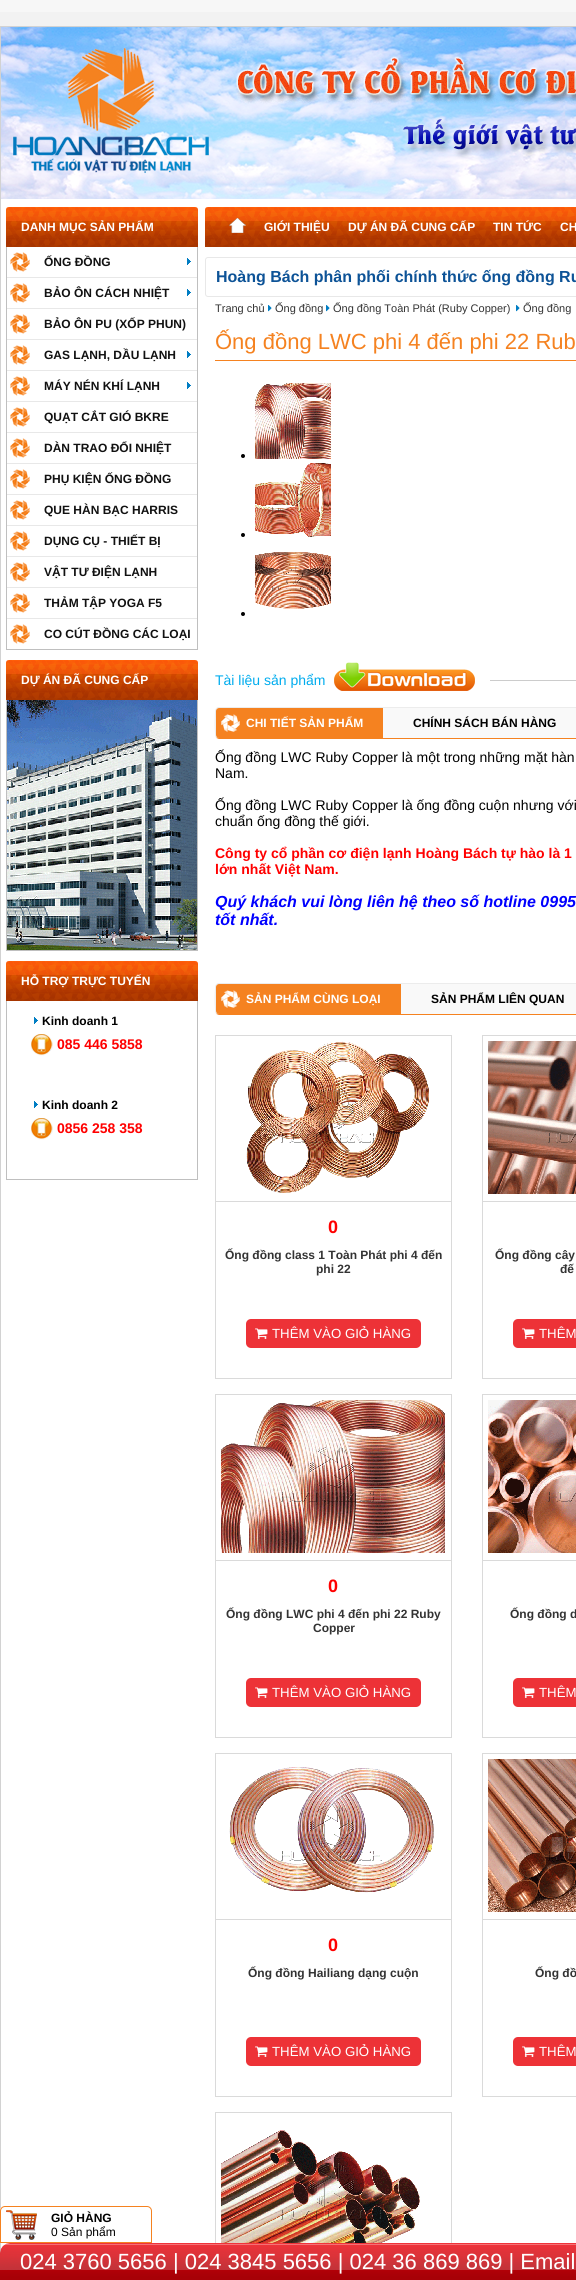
#include <cairo.h>
#include <math.h>
#include <stddef.h>

typedef struct { double x, y; const char *s; } line_t;
typedef struct { double x, y, w, h; unsigned color; } box_t;

static void ink(cairo_t *ctx, unsigned color) {
    cairo_set_source_rgb(ctx, (color >> 16) / 255.0, (color >> 8 & 255) / 255.0, (color & 255) / 255.0);
}

static void round_path(cairo_t *ctx, double x, double y, double w, double h, double r) {
    cairo_new_sub_path(ctx);
    cairo_arc(ctx, x + w - r, y + h - r, r, 0, M_PI / 2);
    cairo_arc(ctx, x + r, y + h - r, r, M_PI / 2, M_PI);
    cairo_arc(ctx, x + r, y + r, r, M_PI, 1.5 * M_PI);
    cairo_arc(ctx, x + w - r, y + r, r, 1.5 * M_PI, 2 * M_PI);
    cairo_close_path(ctx);
}

static void paste(cairo_t *ctx, const char *path, double x, double y, double w, double h) {
    cairo_surface_t *image = cairo_image_surface_create_from_png(path);
    cairo_save(ctx);
    cairo_set_source_surface(ctx, image, x, y);
    cairo_rectangle(ctx, x, y, w, h);
    cairo_fill(ctx);
    cairo_restore(ctx);
    cairo_surface_destroy(image);
}

int main(void) {
    cairo_surface_t *surface = cairo_image_surface_create(CAIRO_FORMAT_RGB24, 576, 2280);
    cairo_t *ctx = cairo_create(surface);
    cairo_font_options_t *options = cairo_font_options_create();
    cairo_font_options_set_hint_metrics(options, CAIRO_HINT_METRICS_OFF);
    cairo_font_options_set_hint_style(options, CAIRO_HINT_STYLE_NONE);
    cairo_set_font_options(ctx, options);
    cairo_set_miter_limit(ctx, 4);
    ink(ctx, 0xF2F2F2);
    cairo_paint(ctx);
    {
        static const box_t items[] = {
            {0, 0, 576, 12, 0xF7F7F7},
            {1, 199, 575, 2050, 0xFFFFFF},
            {0, 26, 576, 1, 0xD2D2D2},
            {0, 26, 1, 2227, 0xD2D2D2},
        };
        for (size_t i = 0; i < sizeof items / sizeof *items; i++) {
            ink(ctx, items[i].color);
            cairo_rectangle(ctx, items[i].x, items[i].y, items[i].w, items[i].h);
            cairo_fill(ctx);
        }
    }
    paste(ctx, "media/1.png", 1, 27, 575, 172);
    paste(ctx, "media/2.png", 6, 207, 192, 40);
    cairo_select_font_face(ctx, "Liberation Sans", CAIRO_FONT_SLANT_NORMAL, CAIRO_FONT_WEIGHT_BOLD);
    cairo_set_font_size(ctx, 12);
    ink(ctx, 0xFFFFFF);
    cairo_move_to(ctx, 21, 231);
    cairo_show_text(ctx, "DANH MỤC SẢN PHẨM");
    {
        static const box_t items[] = {
            {197, 247, 1, 403, 0xBFBFBF},
            {6, 649, 192, 1, 0xBFBFBF},
            {6, 247, 1, 403, 0xBFBFBF},
        };
        for (size_t i = 0; i < sizeof items / sizeof *items; i++) {
            ink(ctx, items[i].color);
            cairo_rectangle(ctx, items[i].x, items[i].y, items[i].w, items[i].h);
            cairo_fill(ctx);
        }
    }
    paste(ctx, "media/3.png", 10, 252, 20, 20);
    paste(ctx, "media/4.png", 187, 258, 4, 7);
    ink(ctx, 0x111111);
    cairo_move_to(ctx, 44, 266);
    cairo_show_text(ctx, "ỐNG ĐỒNG");
    paste(ctx, "media/3.png", 10, 283, 20, 20);
    ink(ctx, 0xE8E8E8);
    cairo_rectangle(ctx, 7, 277, 190, 1);
    cairo_fill(ctx);
    paste(ctx, "media/4.png", 187, 289, 4, 7);
    ink(ctx, 0x111111);
    cairo_move_to(ctx, 44, 297);
    cairo_show_text(ctx, "BẢO ÔN CÁCH NHIỆT");
    paste(ctx, "media/3.png", 10, 314, 20, 20);
    ink(ctx, 0xE8E8E8);
    cairo_rectangle(ctx, 7, 308, 190, 1);
    cairo_fill(ctx);
    ink(ctx, 0x111111);
    cairo_move_to(ctx, 44, 328);
    cairo_show_text(ctx, "BẢO ÔN PU (XỐP PHUN)");
    paste(ctx, "media/3.png", 10, 345, 20, 20);
    ink(ctx, 0xE8E8E8);
    cairo_rectangle(ctx, 7, 339, 190, 1);
    cairo_fill(ctx);
    paste(ctx, "media/4.png", 187, 351, 4, 7);
    ink(ctx, 0x111111);
    cairo_move_to(ctx, 44, 359);
    cairo_show_text(ctx, "GAS LẠNH, DẦU LẠNH");
    paste(ctx, "media/3.png", 10, 376, 20, 20);
    ink(ctx, 0xE8E8E8);
    cairo_rectangle(ctx, 7, 370, 190, 1);
    cairo_fill(ctx);
    paste(ctx, "media/4.png", 187, 382, 4, 7);
    ink(ctx, 0x111111);
    cairo_move_to(ctx, 44, 390);
    cairo_show_text(ctx, "MÁY NÉN KHÍ LẠNH");
    paste(ctx, "media/3.png", 10, 407, 20, 20);
    ink(ctx, 0xE8E8E8);
    cairo_rectangle(ctx, 7, 401, 190, 1);
    cairo_fill(ctx);
    ink(ctx, 0x111111);
    cairo_move_to(ctx, 44, 421);
    cairo_show_text(ctx, "QUẠT CẮT GIÓ BKRE");
    paste(ctx, "media/3.png", 10, 438, 20, 20);
    ink(ctx, 0xE8E8E8);
    cairo_rectangle(ctx, 7, 432, 190, 1);
    cairo_fill(ctx);
    ink(ctx, 0x111111);
    cairo_move_to(ctx, 44, 452);
    cairo_show_text(ctx, "DÀN TRAO ĐỔI NHIỆT");
    paste(ctx, "media/3.png", 10, 469, 20, 20);
    ink(ctx, 0xE8E8E8);
    cairo_rectangle(ctx, 7, 463, 190, 1);
    cairo_fill(ctx);
    ink(ctx, 0x111111);
    cairo_move_to(ctx, 44, 483);
    cairo_show_text(ctx, "PHỤ KIỆN ỐNG ĐỒNG");
    paste(ctx, "media/3.png", 10, 500, 20, 20);
    ink(ctx, 0xE8E8E8);
    cairo_rectangle(ctx, 7, 494, 190, 1);
    cairo_fill(ctx);
    ink(ctx, 0x111111);
    cairo_move_to(ctx, 44, 514);
    cairo_show_text(ctx, "QUE HÀN BẠC HARRIS");
    paste(ctx, "media/3.png", 10, 531, 20, 20);
    ink(ctx, 0xE8E8E8);
    cairo_rectangle(ctx, 7, 525, 190, 1);
    cairo_fill(ctx);
    ink(ctx, 0x111111);
    cairo_move_to(ctx, 44, 545);
    cairo_show_text(ctx, "DỤNG CỤ - THIẾT BỊ");
    paste(ctx, "media/3.png", 10, 562, 20, 20);
    ink(ctx, 0xE8E8E8);
    cairo_rectangle(ctx, 7, 556, 190, 1);
    cairo_fill(ctx);
    ink(ctx, 0x111111);
    cairo_move_to(ctx, 44, 576);
    cairo_show_text(ctx, "VẬT TƯ ĐIỆN LẠNH");
    paste(ctx, "media/3.png", 10, 593, 20, 20);
    ink(ctx, 0xE8E8E8);
    cairo_rectangle(ctx, 7, 587, 190, 1);
    cairo_fill(ctx);
    ink(ctx, 0x111111);
    cairo_move_to(ctx, 44, 607);
    cairo_show_text(ctx, "THẢM TẬP YOGA F5");
    paste(ctx, "media/3.png", 10, 624, 20, 20);
    ink(ctx, 0xE8E8E8);
    cairo_rectangle(ctx, 7, 618, 190, 1);
    cairo_fill(ctx);
    ink(ctx, 0x111111);
    cairo_move_to(ctx, 44, 638);
    cairo_show_text(ctx, "CO CÚT ĐỒNG CÁC LOẠI");
    paste(ctx, "media/2.png", 6, 660, 192, 40);
    ink(ctx, 0xFFFFFF);
    cairo_move_to(ctx, 21, 684);
    cairo_show_text(ctx, "DỰ ÁN ĐÃ CUNG CẤP");
    {
        static const box_t items[] = {
            {197, 700, 1, 251, 0xBFBFBF},
            {6, 950, 192, 1, 0xBFBFBF},
            {6, 700, 1, 251, 0xBFBFBF},
        };
        for (size_t i = 0; i < sizeof items / sizeof *items; i++) {
            ink(ctx, items[i].color);
            cairo_rectangle(ctx, items[i].x, items[i].y, items[i].w, items[i].h);
            cairo_fill(ctx);
        }
    }
    paste(ctx, "media/5.png", 7, 700, 190, 250);
    paste(ctx, "media/2.png", 6, 961, 192, 40);
    ink(ctx, 0xFFFFFF);
    cairo_move_to(ctx, 21, 985);
    cairo_show_text(ctx, "HỖ TRỢ TRỰC TUYẾN");
    {
        static const box_t items[] = {
            {197, 1001, 1, 179, 0xBFBFBF},
            {6, 1179, 192, 1, 0xBFBFBF},
            {6, 1001, 1, 179, 0xBFBFBF},
        };
        for (size_t i = 0; i < sizeof items / sizeof *items; i++) {
            ink(ctx, items[i].color);
            cairo_rectangle(ctx, items[i].x, items[i].y, items[i].w, items[i].h);
            cairo_fill(ctx);
        }
    }
    paste(ctx, "media/4.png", 34, 1017, 4, 7);
    ink(ctx, 0x000000);
    cairo_move_to(ctx, 42, 1025);
    cairo_show_text(ctx, "Kinh doanh 1");
    paste(ctx, "media/6.png", 31, 1034, 22, 22);
    cairo_set_font_size(ctx, 14);
    ink(ctx, 0xFF0000);
    cairo_move_to(ctx, 57, 1049);
    cairo_show_text(ctx, "085 446 5858");
    paste(ctx, "media/4.png", 34, 1101, 4, 7);
    cairo_set_font_size(ctx, 12);
    ink(ctx, 0x000000);
    cairo_move_to(ctx, 42, 1109);
    cairo_show_text(ctx, "Kinh doanh 2");
    paste(ctx, "media/6.png", 31, 1118, 22, 22);
    cairo_set_font_size(ctx, 14);
    ink(ctx, 0xFF0000);
    cairo_move_to(ctx, 57, 1133);
    cairo_show_text(ctx, "0856 258 358");
    paste(ctx, "media/7.png", 205, 207, 371, 40);
    paste(ctx, "media/8.png", 229, 218, 17, 15);
    cairo_set_font_size(ctx, 12);
    ink(ctx, 0xFFFFFF);
    {
        static const line_t items[] = {
            {264, 231, "GIỚI THIỆU"},
            {348, 231, "DỰ ÁN ĐÃ CUNG CẤP"},
            {493, 231, "TIN TỨC"},
            {560, 231, "CH"},
        };
        for (size_t i = 0; i < sizeof items / sizeof *items; i++) {
            cairo_move_to(ctx, items[i].x, items[i].y);
            cairo_show_text(ctx, items[i].s);
        }
    }
    round_path(ctx, 205.5, 257.5, 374, 39, 2.5);
    ink(ctx, 0xE8E8E8);
    cairo_set_line_width(ctx, 1);
    cairo_stroke(ctx);
    cairo_set_font_size(ctx, 16);
    ink(ctx, 0x0D5397);
    cairo_move_to(ctx, 216, 282);
    cairo_show_text(ctx, "Hoàng Bách phân phối chính thức ống đồng Ru");
    cairo_select_font_face(ctx, "Liberation Sans", CAIRO_FONT_SLANT_NORMAL, CAIRO_FONT_WEIGHT_NORMAL);
    cairo_set_font_size(ctx, 11);
    ink(ctx, 0x333333);
    cairo_move_to(ctx, 215, 312);
    cairo_show_text(ctx, "Trang chủ");
    paste(ctx, "media/9.png", 268, 305, 4, 7);
    cairo_move_to(ctx, 275, 312);
    cairo_show_text(ctx, "Ống đồng");
    paste(ctx, "media/9.png", 326, 305, 4, 7);
    cairo_move_to(ctx, 333, 312);
    cairo_show_text(ctx, "Ống đồng Toàn Phát (Ruby Copper)");
    paste(ctx, "media/9.png", 516, 305, 4, 7);
    cairo_move_to(ctx, 523, 312);
    cairo_show_text(ctx, "Ống đồng");
    ink(ctx, 0xF58220);
    cairo_rectangle(ctx, 215, 360, 361, 1);
    cairo_fill(ctx);
    cairo_set_font_size(ctx, 22);
    cairo_move_to(ctx, 215, 349);
    cairo_show_text(ctx, "Ống đồng LWC phi 4 đến phi 22 Rub");
    ink(ctx, 0x000000);
    cairo_new_path(ctx);
    cairo_arc(ctx, 243, 456, 2, 0, 2 * M_PI);
    cairo_fill(ctx);
    paste(ctx, "media/10.png", 255, 383, 76, 76);
    cairo_arc(ctx, 243, 535, 2, 0, 2 * M_PI);
    cairo_fill(ctx);
    paste(ctx, "media/11.png", 255, 463, 76, 74);
    paste(ctx, "media/12.png", 255, 552, 76, 57);
    cairo_arc(ctx, 243, 614, 2, 0, 2 * M_PI);
    cairo_fill(ctx);
    ink(ctx, 0xCCCCCC);
    cairo_rectangle(ctx, 490, 680, 86, 1);
    cairo_fill(ctx);
    cairo_set_font_size(ctx, 14);
    ink(ctx, 0x00ACEE);
    cairo_move_to(ctx, 215, 685);
    cairo_show_text(ctx, "Tài liệu sản phẩm");
    paste(ctx, "media/13.png", 334, 662, 141, 29);
    ink(ctx, 0xF9F9F9);
    round_path(ctx, 215, 707, 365, 32, 4);
    cairo_fill(ctx);
    cairo_new_path(ctx);
    cairo_move_to(ctx, 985.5, 737.5);
    cairo_line_to(ctx, 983, 738.5);
    cairo_line_to(ctx, 219, 738.5);
    cairo_line_to(ctx, 216.5, 737.5);
    ink(ctx, 0xF58220);
    cairo_stroke(ctx);
    cairo_new_path(ctx);
    cairo_move_to(ctx, 216.5, 737.5);
    cairo_curve_to(ctx, 214.5, 735.5, 215, 711.5, 216, 709.5);
    cairo_curve_to(ctx, 216.5, 708.5, 217.5, 707.5, 219, 707.5);
    cairo_line_to(ctx, 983, 707.5);
    cairo_curve_to(ctx, 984.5, 707.5, 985.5, 708.5, 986, 709.5);
    cairo_curve_to(ctx, 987, 711.5, 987.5, 735.5, 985.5, 737.5);
    ink(ctx, 0xECECEC);
    cairo_stroke(ctx);
    ink(ctx, 0xF58220);
    cairo_new_path(ctx);
    cairo_move_to(ctx, 219, 708);
    cairo_line_to(ctx, 383, 708);
    cairo_line_to(ctx, 383, 738);
    cairo_line_to(ctx, 219, 738);
    cairo_curve_to(ctx, 217.5, 738, 216, 736.5, 216, 735);
    cairo_line_to(ctx, 216, 711);
    cairo_curve_to(ctx, 216, 709.5, 217.5, 708, 219, 708);
    cairo_close_path(ctx);
    cairo_fill(ctx);
    paste(ctx, "media/14.png", 221, 714, 19, 18);
    cairo_select_font_face(ctx, "Liberation Sans", CAIRO_FONT_SLANT_NORMAL, CAIRO_FONT_WEIGHT_BOLD);
    cairo_set_font_size(ctx, 12);
    ink(ctx, 0xFFFFFF);
    cairo_move_to(ctx, 246, 727);
    cairo_show_text(ctx, "CHI TIẾT SẢN PHẨM");
    ink(ctx, 0x000000);
    cairo_move_to(ctx, 413, 727);
    cairo_show_text(ctx, "CHÍNH SÁCH BÁN HÀNG");
    cairo_select_font_face(ctx, "Liberation Sans", CAIRO_FONT_SLANT_NORMAL, CAIRO_FONT_WEIGHT_NORMAL);
    cairo_set_font_size(ctx, 14);
    {
        static const line_t items[] = {
            {215, 762, "Ống đồng LWC Ruby Copper là một trong những mặt hàn"},
            {215, 778, "Nam."},
            {215, 810, "Ống đồng LWC Ruby Copper là ống đồng cuộn nhưng với"},
            {215, 826, "chuẩn ống đồng thế giới."},
        };
        for (size_t i = 0; i < sizeof items / sizeof *items; i++) {
            cairo_move_to(ctx, items[i].x, items[i].y);
            cairo_show_text(ctx, items[i].s);
        }
    }
    cairo_select_font_face(ctx, "Liberation Sans", CAIRO_FONT_SLANT_NORMAL, CAIRO_FONT_WEIGHT_BOLD);
    ink(ctx, 0xFF0000);
    cairo_move_to(ctx, 215, 858);
    cairo_show_text(ctx, "Công ty cổ phần cơ điện lạnh Hoàng Bách tự hào là 1");
    cairo_move_to(ctx, 215, 874);
    cairo_show_text(ctx, "lớn nhất Việt Nam.");
    cairo_select_font_face(ctx, "Liberation Sans", CAIRO_FONT_SLANT_ITALIC, CAIRO_FONT_WEIGHT_BOLD);
    cairo_set_font_size(ctx, 16);
    ink(ctx, 0x0000FF);
    cairo_move_to(ctx, 215, 907);
    cairo_show_text(ctx, "Quý khách vui lòng liên hệ theo số hotline 0995");
    cairo_move_to(ctx, 215, 925);
    cairo_show_text(ctx, "tốt nhất.");
    ink(ctx, 0xF9F9F9);
    round_path(ctx, 215, 983, 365, 32, 4);
    cairo_fill(ctx);
    cairo_new_path(ctx);
    cairo_move_to(ctx, 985.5, 1013.5);
    cairo_line_to(ctx, 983, 1014.5);
    cairo_line_to(ctx, 219, 1014.5);
    cairo_line_to(ctx, 216.5, 1013.5);
    ink(ctx, 0xF58220);
    cairo_stroke(ctx);
    cairo_new_path(ctx);
    cairo_move_to(ctx, 216.5, 1013.5);
    cairo_curve_to(ctx, 214.5, 1011.5, 215, 987.5, 216, 985.5);
    cairo_curve_to(ctx, 216.5, 984.5, 217.5, 983.5, 219, 983.5);
    cairo_line_to(ctx, 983, 983.5);
    cairo_curve_to(ctx, 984.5, 983.5, 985.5, 984.5, 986, 985.5);
    cairo_curve_to(ctx, 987, 987.5, 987.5, 1011.5, 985.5, 1013.5);
    ink(ctx, 0xECECEC);
    cairo_stroke(ctx);
    ink(ctx, 0xF58220);
    cairo_new_path(ctx);
    cairo_move_to(ctx, 219, 984);
    cairo_line_to(ctx, 401, 984);
    cairo_line_to(ctx, 401, 1014);
    cairo_line_to(ctx, 219, 1014);
    cairo_curve_to(ctx, 217.5, 1014, 216, 1012.5, 216, 1011);
    cairo_line_to(ctx, 216, 987);
    cairo_curve_to(ctx, 216, 985.5, 217.5, 984, 219, 984);
    cairo_close_path(ctx);
    cairo_fill(ctx);
    paste(ctx, "media/14.png", 221, 990, 19, 18);
    cairo_select_font_face(ctx, "Liberation Sans", CAIRO_FONT_SLANT_NORMAL, CAIRO_FONT_WEIGHT_BOLD);
    cairo_set_font_size(ctx, 12);
    ink(ctx, 0xFFFFFF);
    cairo_move_to(ctx, 246, 1003);
    cairo_show_text(ctx, "SẢN PHẨM CÙNG LOẠI");
    ink(ctx, 0x000000);
    cairo_move_to(ctx, 431, 1003);
    cairo_show_text(ctx, "SẢN PHẨM LIÊN QUAN");
    cairo_rectangle(ctx, 215.5, 1035.5, 236, 343);
    ink(ctx, 0xDADADA);
    cairo_stroke(ctx);
    cairo_rectangle(ctx, 216, 1201, 235, 1);
    cairo_fill(ctx);
    paste(ctx, "media/15.png", 246, 1041, 183, 152);
    cairo_set_font_size(ctx, 18);
    ink(ctx, 0xFF0000);
    cairo_move_to(ctx, 328, 1233);
    cairo_show_text(ctx, "0");
    cairo_set_font_size(ctx, 12);
    ink(ctx, 0x333333);
    cairo_move_to(ctx, 225, 1259);
    cairo_show_text(ctx, "Ống đồng class 1 Toàn Phát phi 4 đến");
    cairo_move_to(ctx, 316, 1273);
    cairo_show_text(ctx, "phi 22");
    ink(ctx, 0xED3237);
    round_path(ctx, 246, 1319, 175, 29, 5);
    cairo_fill(ctx);
    paste(ctx, "media/16.png", 255, 1328, 13, 11);
    cairo_select_font_face(ctx, "Liberation Sans", CAIRO_FONT_SLANT_NORMAL, CAIRO_FONT_WEIGHT_NORMAL);
    cairo_set_font_size(ctx, 13.25);
    ink(ctx, 0xFFFFFF);
    cairo_move_to(ctx, 272, 1338);
    cairo_show_text(ctx, "THÊM VÀO GIỎ HÀNG");
    cairo_rectangle(ctx, 482.5, 1035.5, 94, 343);
    ink(ctx, 0xDADADA);
    cairo_stroke(ctx);
    cairo_rectangle(ctx, 483, 1201, 93, 1);
    cairo_fill(ctx);
    paste(ctx, "media/17.png", 488, 1041, 88, 153);
    cairo_select_font_face(ctx, "Liberation Sans", CAIRO_FONT_SLANT_NORMAL, CAIRO_FONT_WEIGHT_BOLD);
    cairo_set_font_size(ctx, 12);
    ink(ctx, 0x333333);
    cairo_move_to(ctx, 495, 1259);
    cairo_show_text(ctx, "Ống đồng cây");
    cairo_move_to(ctx, 560, 1273);
    cairo_show_text(ctx, "đế");
    ink(ctx, 0xED3237);
    round_path(ctx, 513, 1319, 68, 29, 5);
    cairo_fill(ctx);
    paste(ctx, "media/16.png", 522, 1328, 13, 11);
    cairo_select_font_face(ctx, "Liberation Sans", CAIRO_FONT_SLANT_NORMAL, CAIRO_FONT_WEIGHT_NORMAL);
    cairo_set_font_size(ctx, 13.25);
    ink(ctx, 0xFFFFFF);
    cairo_move_to(ctx, 539, 1338);
    cairo_show_text(ctx, "THÊM");
    cairo_rectangle(ctx, 215.5, 1394.5, 236, 343);
    ink(ctx, 0xDADADA);
    cairo_stroke(ctx);
    cairo_rectangle(ctx, 216, 1560, 235, 1);
    cairo_fill(ctx);
    paste(ctx, "media/18.png", 221, 1400, 224, 153);
    cairo_select_font_face(ctx, "Liberation Sans", CAIRO_FONT_SLANT_NORMAL, CAIRO_FONT_WEIGHT_BOLD);
    cairo_set_font_size(ctx, 18);
    ink(ctx, 0xFF0000);
    cairo_move_to(ctx, 328, 1592);
    cairo_show_text(ctx, "0");
    cairo_set_font_size(ctx, 12);
    ink(ctx, 0x333333);
    cairo_move_to(ctx, 226, 1618);
    cairo_show_text(ctx, "Ống đồng LWC phi 4 đến phi 22 Ruby");
    cairo_move_to(ctx, 313, 1632);
    cairo_show_text(ctx, "Copper");
    ink(ctx, 0xED3237);
    round_path(ctx, 246, 1678, 175, 29, 5);
    cairo_fill(ctx);
    paste(ctx, "media/16.png", 255, 1687, 13, 11);
    cairo_select_font_face(ctx, "Liberation Sans", CAIRO_FONT_SLANT_NORMAL, CAIRO_FONT_WEIGHT_NORMAL);
    cairo_set_font_size(ctx, 13.25);
    ink(ctx, 0xFFFFFF);
    cairo_move_to(ctx, 272, 1697);
    cairo_show_text(ctx, "THÊM VÀO GIỎ HÀNG");
    cairo_rectangle(ctx, 482.5, 1394.5, 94, 343);
    ink(ctx, 0xDADADA);
    cairo_stroke(ctx);
    cairo_rectangle(ctx, 483, 1560, 93, 1);
    cairo_fill(ctx);
    paste(ctx, "media/19.png", 488, 1400, 88, 153);
    cairo_select_font_face(ctx, "Liberation Sans", CAIRO_FONT_SLANT_NORMAL, CAIRO_FONT_WEIGHT_BOLD);
    cairo_set_font_size(ctx, 12);
    ink(ctx, 0x333333);
    cairo_move_to(ctx, 510, 1618);
    cairo_show_text(ctx, "Ống đồng d");
    ink(ctx, 0xED3237);
    round_path(ctx, 513, 1678, 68, 29, 5);
    cairo_fill(ctx);
    paste(ctx, "media/16.png", 522, 1687, 13, 11);
    cairo_select_font_face(ctx, "Liberation Sans", CAIRO_FONT_SLANT_NORMAL, CAIRO_FONT_WEIGHT_NORMAL);
    cairo_set_font_size(ctx, 13.25);
    ink(ctx, 0xFFFFFF);
    cairo_move_to(ctx, 539, 1697);
    cairo_show_text(ctx, "THÊM");
    cairo_rectangle(ctx, 215.5, 1753.5, 236, 343);
    ink(ctx, 0xDADADA);
    cairo_stroke(ctx);
    cairo_rectangle(ctx, 216, 1919, 235, 1);
    cairo_fill(ctx);
    paste(ctx, "media/20.png", 229, 1767, 205, 126);
    cairo_select_font_face(ctx, "Liberation Sans", CAIRO_FONT_SLANT_NORMAL, CAIRO_FONT_WEIGHT_BOLD);
    cairo_set_font_size(ctx, 18);
    ink(ctx, 0xFF0000);
    cairo_move_to(ctx, 328, 1951);
    cairo_show_text(ctx, "0");
    cairo_set_font_size(ctx, 12);
    ink(ctx, 0x333333);
    cairo_move_to(ctx, 248, 1977);
    cairo_show_text(ctx, "Ống đồng Hailiang dạng cuộn");
    ink(ctx, 0xED3237);
    round_path(ctx, 246, 2037, 175, 29, 5);
    cairo_fill(ctx);
    paste(ctx, "media/16.png", 255, 2046, 13, 11);
    cairo_select_font_face(ctx, "Liberation Sans", CAIRO_FONT_SLANT_NORMAL, CAIRO_FONT_WEIGHT_NORMAL);
    cairo_set_font_size(ctx, 13.25);
    ink(ctx, 0xFFFFFF);
    cairo_move_to(ctx, 272, 2056);
    cairo_show_text(ctx, "THÊM VÀO GIỎ HÀNG");
    cairo_rectangle(ctx, 482.5, 1753.5, 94, 343);
    ink(ctx, 0xDADADA);
    cairo_stroke(ctx);
    cairo_rectangle(ctx, 483, 1919, 93, 1);
    cairo_fill(ctx);
    paste(ctx, "media/21.png", 488, 1759, 88, 153);
    cairo_select_font_face(ctx, "Liberation Sans", CAIRO_FONT_SLANT_NORMAL, CAIRO_FONT_WEIGHT_BOLD);
    cairo_set_font_size(ctx, 12);
    ink(ctx, 0x333333);
    cairo_move_to(ctx, 535, 1977);
    cairo_show_text(ctx, "Ống đồ");
    ink(ctx, 0xED3237);
    round_path(ctx, 513, 2037, 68, 29, 5);
    cairo_fill(ctx);
    paste(ctx, "media/16.png", 522, 2046, 13, 11);
    cairo_select_font_face(ctx, "Liberation Sans", CAIRO_FONT_SLANT_NORMAL, CAIRO_FONT_WEIGHT_NORMAL);
    cairo_set_font_size(ctx, 13.25);
    ink(ctx, 0xFFFFFF);
    cairo_move_to(ctx, 539, 2056);
    cairo_show_text(ctx, "THÊM");
    cairo_rectangle(ctx, 215.5, 2112.5, 236, 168);
    ink(ctx, 0xDADADA);
    cairo_stroke(ctx);
    paste(ctx, "media/22.png", 221, 2130, 199, 113);
    ink(ctx, 0xFFFFFF);
    cairo_new_path(ctx);
    cairo_move_to(ctx, 5, 2206);
    cairo_line_to(ctx, 147, 2206);
    cairo_curve_to(ctx, 150, 2206, 152, 2208, 152, 2211);
    cairo_line_to(ctx, 152, 2243);
    cairo_line_to(ctx, 0, 2243);
    cairo_line_to(ctx, 0, 2211);
    cairo_curve_to(ctx, 0, 2208, 2, 2206, 5, 2206);
    cairo_close_path(ctx);
    cairo_fill(ctx);
    paste(ctx, "media/23.png", 6, 2210, 31, 30);
    cairo_new_path(ctx);
    cairo_move_to(ctx, 5, 2206.5);
    cairo_line_to(ctx, 147, 2206.5);
    cairo_curve_to(ctx, 149.5, 2206.5, 151.5, 2208.5, 151.5, 2211);
    cairo_line_to(ctx, 151.5, 2242.5);
    cairo_line_to(ctx, 0.5, 2242.5);
    cairo_line_to(ctx, 0.5, 2211);
    cairo_curve_to(ctx, 0.5, 2208.5, 2.5, 2206.5, 5, 2206.5);
    cairo_close_path(ctx);
    ink(ctx, 0xF58220);
    cairo_stroke(ctx);
    cairo_select_font_face(ctx, "Liberation Sans", CAIRO_FONT_SLANT_NORMAL, CAIRO_FONT_WEIGHT_BOLD);
    cairo_set_font_size(ctx, 12);
    ink(ctx, 0x000000);
    cairo_move_to(ctx, 51, 2222);
    cairo_show_text(ctx, "GIỎ HÀNG");
    cairo_select_font_face(ctx, "Liberation Sans", CAIRO_FONT_SLANT_NORMAL, CAIRO_FONT_WEIGHT_NORMAL);
    cairo_move_to(ctx, 51, 2236);
    cairo_show_text(ctx, "0 Sản phẩm");
    paste(ctx, "media/24.png", 0, 2243, 576, 37);
    cairo_set_font_size(ctx, 22);
    ink(ctx, 0xFFFFFF);
    cairo_move_to(ctx, 20, 2269);
    cairo_show_text(ctx, "024 3760 5656 | 024 3845 5656 | 024 36 869 869 | Email");
    cairo_surface_write_to_png(surface, "image.png");
    cairo_font_options_destroy(options);
    cairo_destroy(ctx);
    cairo_surface_destroy(surface);
    return 0;
}
